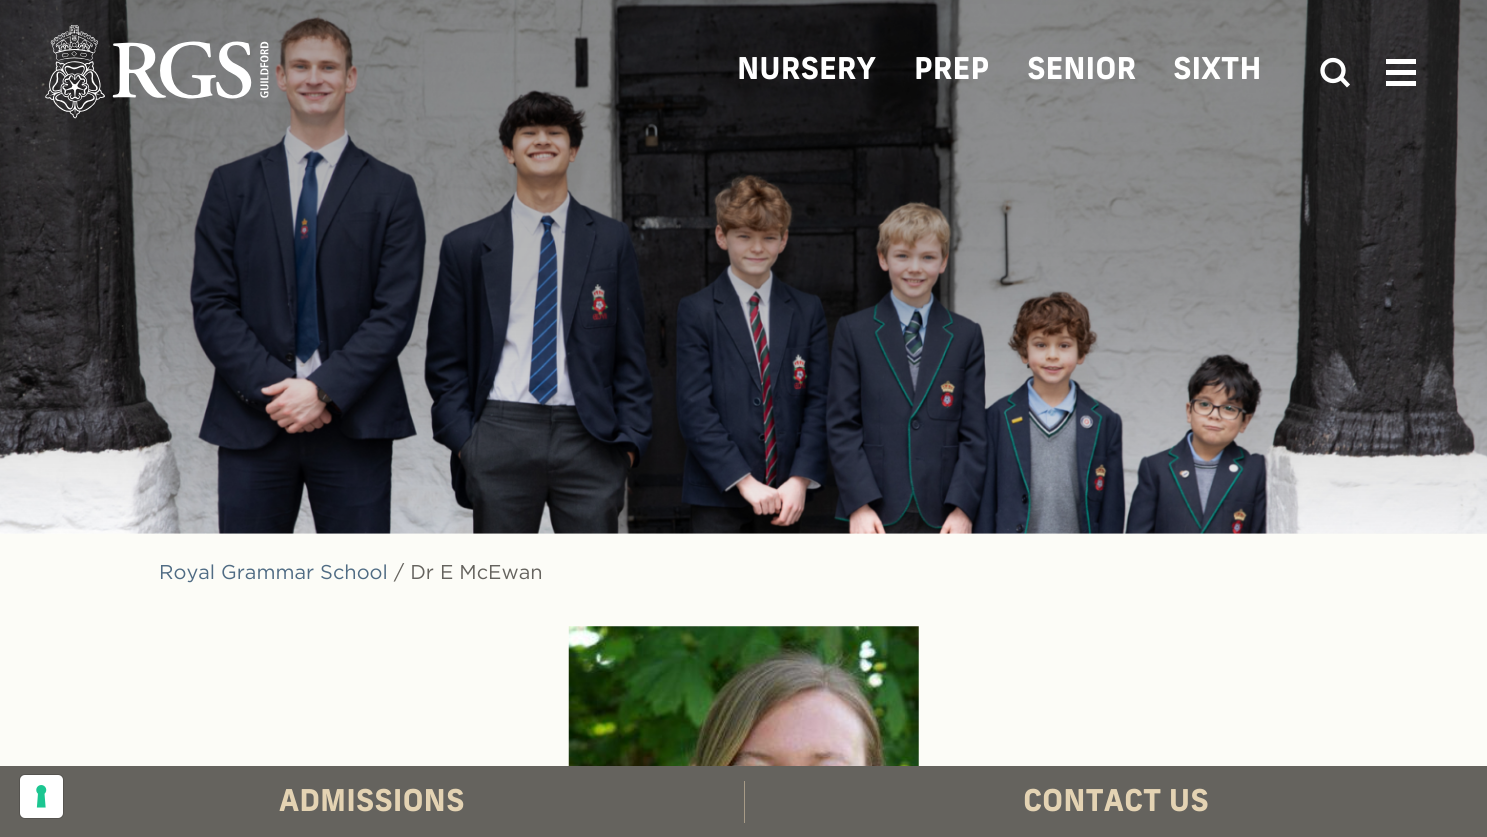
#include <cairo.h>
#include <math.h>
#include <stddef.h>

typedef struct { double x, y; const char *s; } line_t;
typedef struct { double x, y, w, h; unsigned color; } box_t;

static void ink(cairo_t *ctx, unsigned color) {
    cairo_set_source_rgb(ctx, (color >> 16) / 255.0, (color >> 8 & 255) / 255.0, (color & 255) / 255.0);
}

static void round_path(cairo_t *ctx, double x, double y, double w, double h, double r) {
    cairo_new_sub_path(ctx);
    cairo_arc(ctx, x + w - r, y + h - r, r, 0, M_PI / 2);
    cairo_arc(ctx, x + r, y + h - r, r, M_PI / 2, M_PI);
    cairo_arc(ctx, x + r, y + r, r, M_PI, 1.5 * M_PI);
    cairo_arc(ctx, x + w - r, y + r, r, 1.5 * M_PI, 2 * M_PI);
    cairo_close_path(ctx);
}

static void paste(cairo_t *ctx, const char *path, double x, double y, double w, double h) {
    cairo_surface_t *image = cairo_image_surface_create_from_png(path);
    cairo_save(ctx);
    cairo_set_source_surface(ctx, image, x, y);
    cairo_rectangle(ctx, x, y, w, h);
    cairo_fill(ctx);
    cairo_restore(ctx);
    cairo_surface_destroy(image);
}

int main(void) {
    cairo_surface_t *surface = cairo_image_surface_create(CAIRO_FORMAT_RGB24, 1487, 837);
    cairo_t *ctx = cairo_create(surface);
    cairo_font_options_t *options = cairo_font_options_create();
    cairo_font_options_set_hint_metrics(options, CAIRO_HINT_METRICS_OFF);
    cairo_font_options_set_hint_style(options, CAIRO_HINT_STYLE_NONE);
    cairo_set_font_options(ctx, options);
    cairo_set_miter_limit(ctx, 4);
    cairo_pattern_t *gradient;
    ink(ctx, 0xFCFCF7);
    cairo_paint(ctx);
    ink(ctx, 0x65635E);
    cairo_rectangle(ctx, 0, 766, 1487, 71);
    cairo_fill(ctx);
    round_path(ctx, 19.5, 774.5, 44, 44, 5.5);
    ink(ctx, 0x565450);
    cairo_set_line_width(ctx, 1);
    cairo_stroke(ctx);
    ink(ctx, 0xFFFFFF);
    round_path(ctx, 20, 775, 43, 43, 5);
    cairo_fill(ctx);
    paste(ctx, "media/1.png", 36, 785, 11, 23);
    paste(ctx, "media/2.png", 0, 0, 1487, 534);
    gradient = cairo_pattern_create_linear(739, 547, 749, -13);
    cairo_pattern_add_color_stop_rgba(gradient, 0, 0, 0, 0, 0);
    cairo_pattern_add_color_stop_rgba(gradient, 0.47, 0, 0, 0, 0.27);
    cairo_pattern_add_color_stop_rgba(gradient, 1, 0, 0, 0, 0.33);
    cairo_set_source(ctx, gradient);
    cairo_pattern_destroy(gradient);
    cairo_rectangle(ctx, 0, 0, 1487, 534);
    cairo_fill(ctx);
    paste(ctx, "media/3.png", 45, 25, 224, 94);
    cairo_select_font_face(ctx, "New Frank", CAIRO_FONT_SLANT_NORMAL, CAIRO_FONT_WEIGHT_BOLD);
    cairo_set_font_size(ctx, 30);
    ink(ctx, 0xFFFFFF);
    {
        static const line_t items[] = {
            {737, 79, "NURSERY"},
            {914, 79, "PREP"},
            {1027, 79, "SENIOR"},
            {1173, 79, "SIXTH"},
        };
        for (size_t i = 0; i < sizeof items / sizeof *items; i++) {
            cairo_move_to(ctx, items[i].x, items[i].y);
            cairo_show_text(ctx, items[i].s);
        }
    }
    cairo_new_path(ctx);
    cairo_arc(ctx, 1333, 70.5, 10.5, 0, 2 * M_PI);
    cairo_set_line_width(ctx, 4.3);
    cairo_stroke(ctx);
    cairo_new_path(ctx);
    cairo_move_to(ctx, 1340.5, 77.5);
    cairo_line_to(ctx, 1348.5, 86);
    cairo_stroke(ctx);
    {
        static const box_t items[] = {
            {1386, 70, 30, 5, 0xFFFFFF},
            {1386, 59, 30, 5, 0xFFFFFF},
            {1386, 81, 30, 5, 0xFFFFFF},
        };
        for (size_t i = 0; i < sizeof items / sizeof *items; i++) {
            ink(ctx, items[i].color);
            cairo_rectangle(ctx, items[i].x, items[i].y, items[i].w, items[i].h);
            cairo_fill(ctx);
        }
    }
    ink(ctx, 0xE4D3B3);
    cairo_move_to(ctx, 279, 811);
    cairo_show_text(ctx, "ADMISSIONS");
    ink(ctx, 0xA79B87);
    cairo_rectangle(ctx, 744, 781, 1, 42);
    cairo_fill(ctx);
    ink(ctx, 0xE4D3B3);
    cairo_move_to(ctx, 1023, 811);
    cairo_show_text(ctx, "CONTACT US");
    cairo_select_font_face(ctx, "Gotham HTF", CAIRO_FONT_SLANT_NORMAL, CAIRO_FONT_WEIGHT_NORMAL);
    cairo_set_font_size(ctx, 20);
    ink(ctx, 0x506C84);
    cairo_move_to(ctx, 159, 579);
    cairo_show_text(ctx, "Royal Grammar School");
    ink(ctx, 0x65635E);
    cairo_move_to(ctx, 394, 579);
    cairo_show_text(ctx, "/ Dr E McEwan");
    ink(ctx, 0xFFFFFF);
    cairo_rectangle(ctx, 569, 626, 350, 140);
    cairo_fill(ctx);
    paste(ctx, "media/4.png", 568, 626, 351, 140);
    cairo_surface_write_to_png(surface, "image.png");
    cairo_font_options_destroy(options);
    cairo_destroy(ctx);
    cairo_surface_destroy(surface);
    return 0;
}
